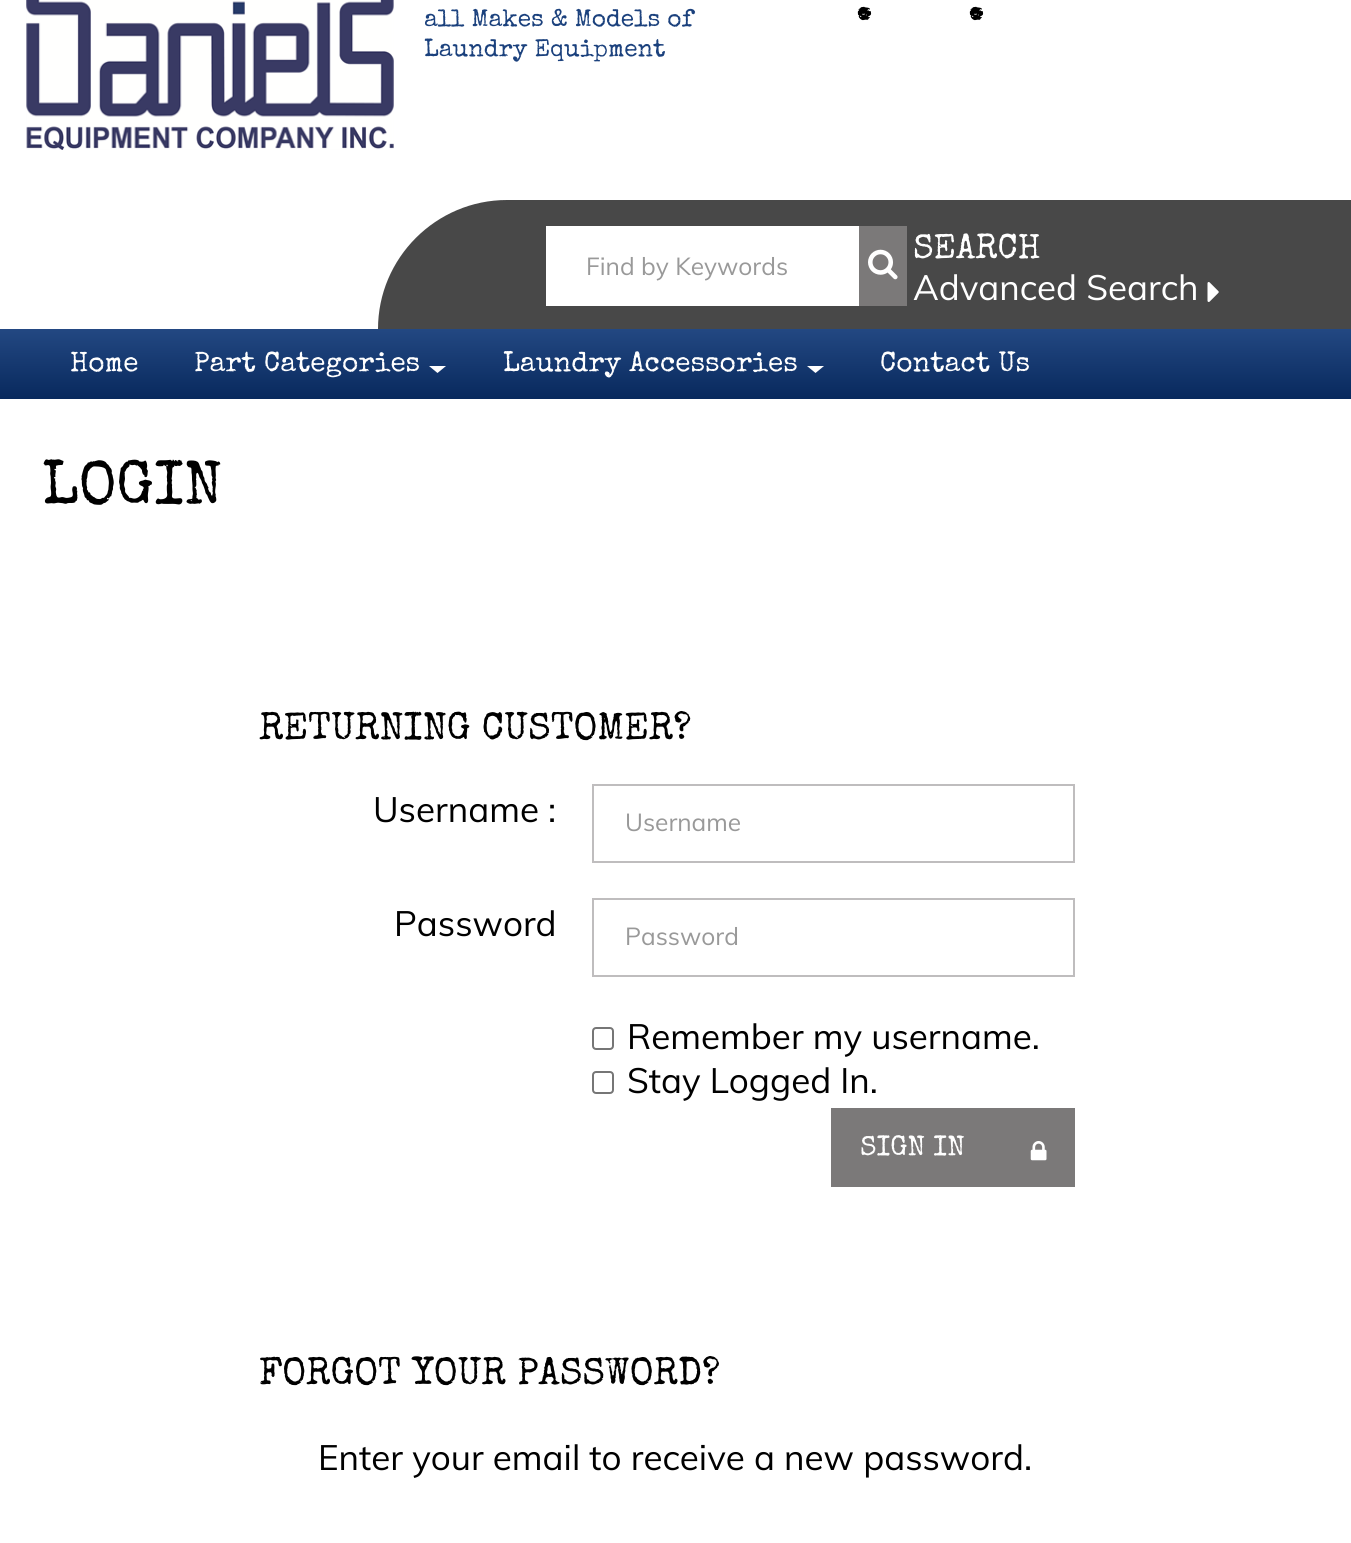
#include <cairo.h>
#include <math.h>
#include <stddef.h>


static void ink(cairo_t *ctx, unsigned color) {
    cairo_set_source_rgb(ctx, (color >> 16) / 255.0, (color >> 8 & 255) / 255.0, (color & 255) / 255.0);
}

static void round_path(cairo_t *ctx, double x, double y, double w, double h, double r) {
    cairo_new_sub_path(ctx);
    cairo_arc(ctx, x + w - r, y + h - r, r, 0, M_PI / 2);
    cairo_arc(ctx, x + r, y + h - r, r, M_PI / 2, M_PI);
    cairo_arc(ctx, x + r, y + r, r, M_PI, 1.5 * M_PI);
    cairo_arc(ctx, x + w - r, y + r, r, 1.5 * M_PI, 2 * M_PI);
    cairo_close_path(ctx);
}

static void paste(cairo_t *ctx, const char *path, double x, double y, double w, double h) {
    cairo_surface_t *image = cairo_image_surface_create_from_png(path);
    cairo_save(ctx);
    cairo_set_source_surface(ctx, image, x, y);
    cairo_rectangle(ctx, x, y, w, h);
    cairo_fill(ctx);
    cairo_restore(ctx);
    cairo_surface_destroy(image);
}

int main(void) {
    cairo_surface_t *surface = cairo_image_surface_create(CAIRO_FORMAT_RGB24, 1351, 1543);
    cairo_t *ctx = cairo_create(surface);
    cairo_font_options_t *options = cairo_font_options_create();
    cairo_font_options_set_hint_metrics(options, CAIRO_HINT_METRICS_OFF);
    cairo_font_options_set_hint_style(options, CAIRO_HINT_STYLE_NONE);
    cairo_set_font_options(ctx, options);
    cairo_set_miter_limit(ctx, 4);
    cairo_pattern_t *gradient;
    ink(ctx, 0xFFFFFF);
    cairo_paint(ctx);
    paste(ctx, "media/1.png", 26, 0, 368, 150);
    cairo_select_font_face(ctx, "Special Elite", CAIRO_FONT_SLANT_NORMAL, CAIRO_FONT_WEIGHT_NORMAL);
    cairo_set_font_size(ctx, 24.5);
    ink(ctx, 0x1B417D);
    cairo_move_to(ctx, 424, 26);
    cairo_show_text(ctx, "all Makes & Models of");
    cairo_move_to(ctx, 424, 56);
    cairo_show_text(ctx, "Laundry Equipment");
    cairo_set_font_size(ctx, 54);
    ink(ctx, 0x000000);
    cairo_move_to(ctx, 855, 20);
    cairo_show_text(ctx, ".");
    cairo_move_to(ctx, 967, 20);
    cairo_show_text(ctx, ".");
    ink(ctx, 0x484848);
    cairo_new_path(ctx);
    cairo_move_to(ctx, 507, 200);
    cairo_line_to(ctx, 1351, 200);
    cairo_line_to(ctx, 1351, 329);
    cairo_line_to(ctx, 378, 329);
    cairo_curve_to(ctx, 378, 258, 436, 200, 507, 200);
    cairo_close_path(ctx);
    cairo_fill(ctx);
    ink(ctx, 0xFFFFFF);
    cairo_rectangle(ctx, 546, 226, 313, 80);
    cairo_fill(ctx);
    cairo_select_font_face(ctx, "Muli", CAIRO_FONT_SLANT_NORMAL, CAIRO_FONT_WEIGHT_NORMAL);
    cairo_set_font_size(ctx, 24.5);
    ink(ctx, 0x999999);
    cairo_move_to(ctx, 586, 275);
    cairo_show_text(ctx, "Find by Keywords");
    ink(ctx, 0x7B7979);
    cairo_rectangle(ctx, 859, 226, 48, 80);
    cairo_fill(ctx);
    paste(ctx, "media/2.png", 868, 249, 30, 31);
    cairo_select_font_face(ctx, "Special Elite", CAIRO_FONT_SLANT_NORMAL, CAIRO_FONT_WEIGHT_NORMAL);
    cairo_set_font_size(ctx, 35);
    ink(ctx, 0xFFFFFF);
    cairo_move_to(ctx, 913, 258);
    cairo_show_text(ctx, "SEARCH");
    cairo_select_font_face(ctx, "Muli", CAIRO_FONT_SLANT_NORMAL, CAIRO_FONT_WEIGHT_NORMAL);
    cairo_move_to(ctx, 913, 300);
    cairo_show_text(ctx, "Advanced Search");
    paste(ctx, "media/3.png", 1207, 282, 12, 20);
    gradient = cairo_pattern_create_linear(676, 329, 676, 399);
    cairo_pattern_add_color_stop_rgba(gradient, 0, 0.137, 0.282, 0.51, 1);
    cairo_pattern_add_color_stop_rgba(gradient, 1, 0.031, 0.161, 0.365, 1);
    cairo_set_source(ctx, gradient);
    cairo_pattern_destroy(gradient);
    cairo_rectangle(ctx, 0, 329, 1351, 70);
    cairo_fill(ctx);
    cairo_select_font_face(ctx, "Special Elite", CAIRO_FONT_SLANT_NORMAL, CAIRO_FONT_WEIGHT_NORMAL);
    cairo_set_font_size(ctx, 28);
    ink(ctx, 0xFFFFFF);
    cairo_move_to(ctx, 70, 371);
    cairo_show_text(ctx, "Home");
    cairo_move_to(ctx, 194, 371);
    cairo_show_text(ctx, "Part Categories");
    cairo_new_path(ctx);
    cairo_move_to(ctx, 429, 366);
    cairo_line_to(ctx, 446, 366);
    cairo_line_to(ctx, 437.5, 373);
    cairo_close_path(ctx);
    cairo_fill(ctx);
    cairo_move_to(ctx, 503, 371);
    cairo_show_text(ctx, "Laundry Accessories");
    cairo_new_path(ctx);
    cairo_move_to(ctx, 807, 366);
    cairo_line_to(ctx, 824, 366);
    cairo_line_to(ctx, 815.5, 373);
    cairo_close_path(ctx);
    cairo_fill(ctx);
    cairo_move_to(ctx, 880, 371);
    cairo_show_text(ctx, "Contact Us");
    cairo_set_font_size(ctx, 61);
    ink(ctx, 0x000000);
    cairo_move_to(ctx, 42, 503);
    cairo_show_text(ctx, "LOGIN");
    cairo_set_font_size(ctx, 38.5);
    cairo_move_to(ctx, 259, 739);
    cairo_show_text(ctx, "RETURNING CUSTOMER?");
    cairo_select_font_face(ctx, "Muli", CAIRO_FONT_SLANT_NORMAL, CAIRO_FONT_WEIGHT_NORMAL);
    cairo_set_font_size(ctx, 35);
    cairo_move_to(ctx, 373, 822);
    cairo_show_text(ctx, "Username :");
    cairo_rectangle(ctx, 593, 785, 481, 77);
    ink(ctx, 0xBFBDBE);
    cairo_stroke(ctx);
    cairo_set_font_size(ctx, 24.5);
    ink(ctx, 0x999999);
    cairo_move_to(ctx, 625, 831);
    cairo_show_text(ctx, "Username");
    cairo_set_font_size(ctx, 35);
    ink(ctx, 0x000000);
    cairo_move_to(ctx, 394, 936);
    cairo_show_text(ctx, "Password");
    cairo_rectangle(ctx, 593, 899, 481, 77);
    ink(ctx, 0xBFBDBE);
    cairo_stroke(ctx);
    cairo_set_font_size(ctx, 24.5);
    ink(ctx, 0x999999);
    cairo_move_to(ctx, 625, 945);
    cairo_show_text(ctx, "Password");
    round_path(ctx, 593, 1028, 20, 21, 3);
    ink(ctx, 0x767676);
    cairo_stroke(ctx);
    cairo_set_font_size(ctx, 35);
    ink(ctx, 0x000000);
    cairo_move_to(ctx, 627, 1049);
    cairo_show_text(ctx, "Remember my username.");
    round_path(ctx, 593, 1072, 20, 21, 3);
    ink(ctx, 0x767676);
    cairo_stroke(ctx);
    ink(ctx, 0x000000);
    cairo_move_to(ctx, 627, 1093);
    cairo_show_text(ctx, "Stay Logged In.");
    ink(ctx, 0x7B7979);
    cairo_rectangle(ctx, 831, 1108, 244, 79);
    cairo_fill(ctx);
    cairo_select_font_face(ctx, "Special Elite", CAIRO_FONT_SLANT_NORMAL, CAIRO_FONT_WEIGHT_NORMAL);
    cairo_set_font_size(ctx, 28);
    ink(ctx, 0xFFFFFF);
    cairo_move_to(ctx, 860, 1155);
    cairo_show_text(ctx, "SIGN IN");
    paste(ctx, "media/4.png", 1030, 1141, 17, 20);
    cairo_set_font_size(ctx, 38.5);
    ink(ctx, 0x000000);
    cairo_move_to(ctx, 259, 1384);
    cairo_show_text(ctx, "FORGOT YOUR PASSWORD?");
    cairo_select_font_face(ctx, "Muli", CAIRO_FONT_SLANT_NORMAL, CAIRO_FONT_WEIGHT_NORMAL);
    cairo_set_font_size(ctx, 35);
    cairo_move_to(ctx, 318, 1470);
    cairo_show_text(ctx, "Enter your email to receive a new password.");
    cairo_surface_write_to_png(surface, "image.png");
    cairo_font_options_destroy(options);
    cairo_destroy(ctx);
    cairo_surface_destroy(surface);
    return 0;
}
